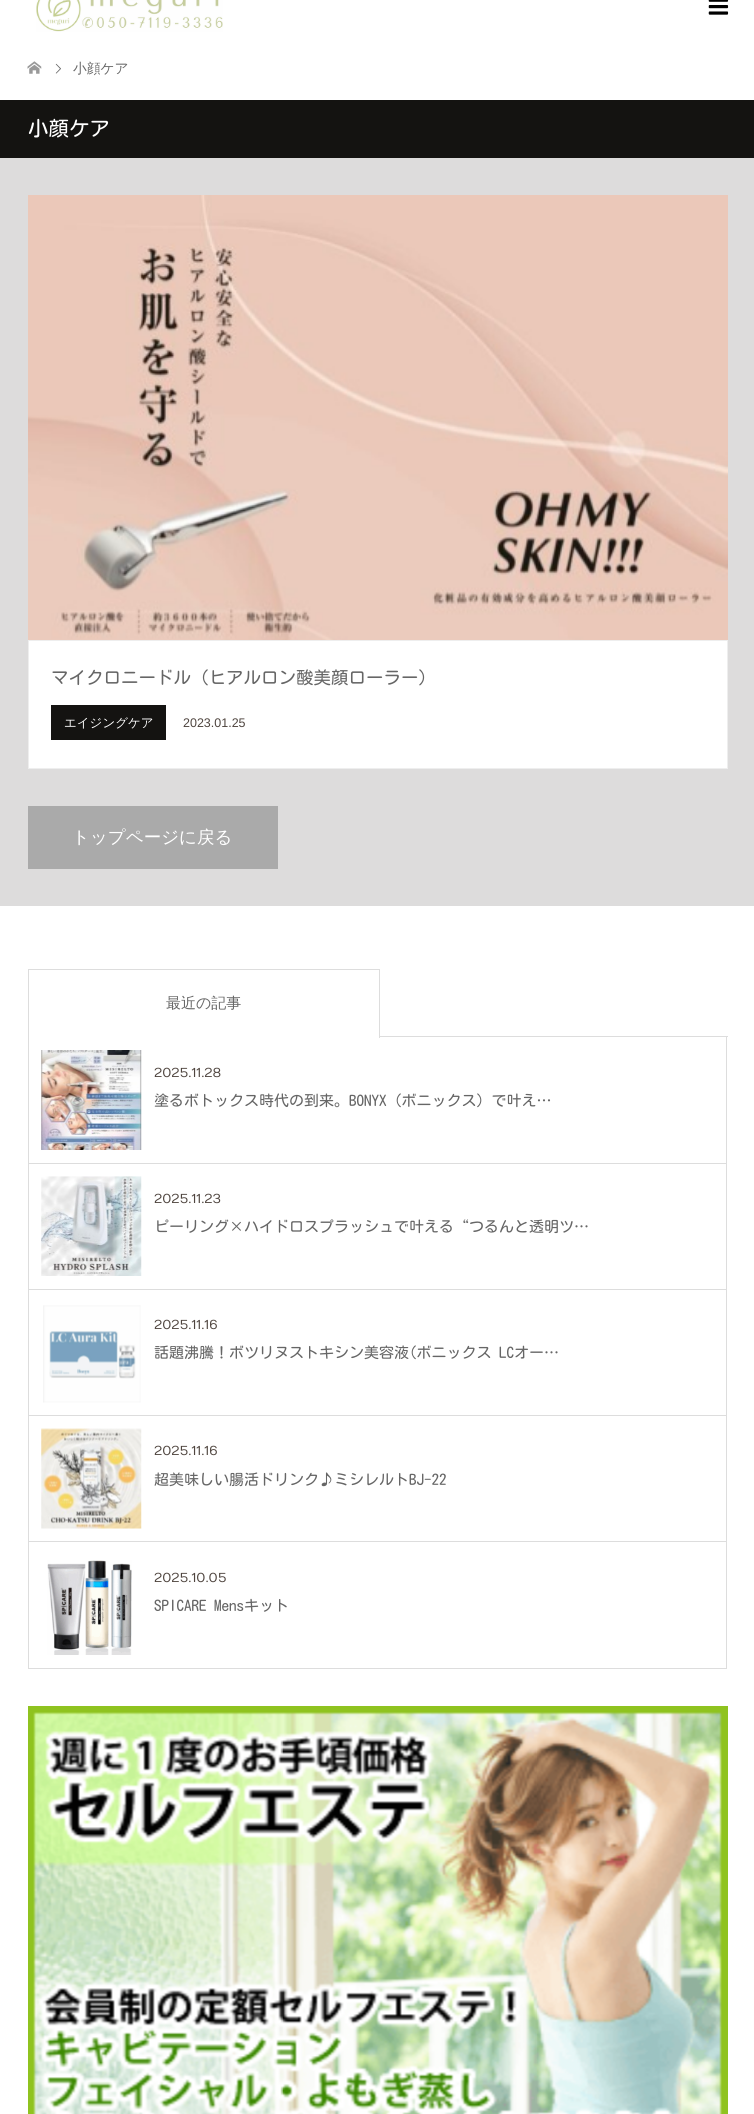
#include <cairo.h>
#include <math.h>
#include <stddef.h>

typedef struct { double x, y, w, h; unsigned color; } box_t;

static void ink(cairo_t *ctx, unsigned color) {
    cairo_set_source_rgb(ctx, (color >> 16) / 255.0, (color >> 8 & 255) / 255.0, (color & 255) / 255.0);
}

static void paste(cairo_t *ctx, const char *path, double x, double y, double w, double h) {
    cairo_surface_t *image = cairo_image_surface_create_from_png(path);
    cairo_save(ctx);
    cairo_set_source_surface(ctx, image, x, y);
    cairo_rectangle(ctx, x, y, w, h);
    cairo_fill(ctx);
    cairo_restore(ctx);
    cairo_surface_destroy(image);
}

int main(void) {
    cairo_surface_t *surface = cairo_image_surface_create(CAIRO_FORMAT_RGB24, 754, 2114);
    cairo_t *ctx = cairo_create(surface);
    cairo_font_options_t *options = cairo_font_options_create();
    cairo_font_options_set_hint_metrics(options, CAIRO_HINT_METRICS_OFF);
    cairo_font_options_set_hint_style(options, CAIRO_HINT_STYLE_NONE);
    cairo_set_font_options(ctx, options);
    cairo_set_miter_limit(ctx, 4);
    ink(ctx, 0xFFFFFF);
    cairo_paint(ctx);
    paste(ctx, "media/1.png", 36, 0, 187, 32);
    paste(ctx, "media/2.png", 708, 0, 21, 15);
    paste(ctx, "media/3.png", 27, 61, 15, 13);
    paste(ctx, "media/4.png", 55, 63, 6, 11);
    cairo_select_font_face(ctx, "WenQuanYi Zen Hei Medium", CAIRO_FONT_SLANT_NORMAL, CAIRO_FONT_WEIGHT_NORMAL);
    cairo_set_font_size(ctx, 13.75);
    ink(ctx, 0x666666);
    cairo_move_to(ctx, 73, 73);
    cairo_show_text(ctx, "小顔ケア");
    ink(ctx, 0x141311);
    cairo_rectangle(ctx, 0, 100, 754, 58);
    cairo_fill(ctx);
    cairo_select_font_face(ctx, "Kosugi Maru", CAIRO_FONT_SLANT_NORMAL, CAIRO_FONT_WEIGHT_NORMAL);
    cairo_set_font_size(ctx, 20.5);
    ink(ctx, 0xFFFFFF);
    cairo_move_to(ctx, 28, 136);
    cairo_show_text(ctx, "小顔ケア");
    ink(ctx, 0xDDDCDC);
    cairo_rectangle(ctx, 0, 158, 754, 748);
    cairo_fill(ctx);
    paste(ctx, "media/5.png", 28, 195, 700, 445);
    ink(ctx, 0xFFFFFF);
    cairo_rectangle(ctx, 28.5, 640.5, 699, 128);
    cairo_fill_preserve(ctx);
    ink(ctx, 0xEEEEEE);
    cairo_set_line_width(ctx, 1);
    cairo_stroke(ctx);
    cairo_set_font_size(ctx, 17.5);
    ink(ctx, 0x666666);
    cairo_move_to(ctx, 51, 684);
    cairo_show_text(ctx, "マイクロニードル（ヒアルロン酸美顔ローラー）");
    ink(ctx, 0x141311);
    cairo_rectangle(ctx, 51, 705, 115, 35);
    cairo_fill(ctx);
    cairo_select_font_face(ctx, "WenQuanYi Zen Hei Medium", CAIRO_FONT_SLANT_NORMAL, CAIRO_FONT_WEIGHT_NORMAL);
    cairo_set_font_size(ctx, 12.5);
    ink(ctx, 0xFFFFFF);
    cairo_move_to(ctx, 64, 727);
    cairo_show_text(ctx, "エイジングケア");
    cairo_select_font_face(ctx, "Liberation Sans", CAIRO_FONT_SLANT_NORMAL, CAIRO_FONT_WEIGHT_NORMAL);
    ink(ctx, 0x4F453F);
    cairo_move_to(ctx, 183, 727);
    cairo_show_text(ctx, "2023.01.25");
    ink(ctx, 0xAAAAAA);
    cairo_rectangle(ctx, 28, 806, 250, 63);
    cairo_fill(ctx);
    cairo_select_font_face(ctx, "WenQuanYi Zen Hei Medium", CAIRO_FONT_SLANT_NORMAL, CAIRO_FONT_WEIGHT_NORMAL);
    cairo_set_font_size(ctx, 17.5);
    ink(ctx, 0xFFFFFF);
    cairo_move_to(ctx, 72, 843);
    cairo_show_text(ctx, "トップページに戻る");
    ink(ctx, 0xDDDDDD);
    cairo_rectangle(ctx, 29, 969, 351, 1);
    cairo_fill(ctx);
    cairo_rectangle(ctx, 379, 969, 1, 69);
    cairo_fill(ctx);
    cairo_set_font_size(ctx, 15);
    ink(ctx, 0x666666);
    cairo_move_to(ctx, 166, 1008);
    cairo_show_text(ctx, "最近の記事");
    {
        static const box_t items[] = {
            {380, 1036, 348, 1, 0xDDDDDD},
            {726, 1036, 1, 633, 0xDDDDDD},
            {28, 969, 1, 700, 0xDDDDDD},
            {29, 1163, 697, 1, 0xDDDDDD},
        };
        for (size_t i = 0; i < sizeof items / sizeof *items; i++) {
            ink(ctx, items[i].color);
            cairo_rectangle(ctx, items[i].x, items[i].y, items[i].w, items[i].h);
            cairo_fill(ctx);
        }
    }
    paste(ctx, "media/6.png", 41, 1050, 101, 100);
    cairo_select_font_face(ctx, "Numans", CAIRO_FONT_SLANT_NORMAL, CAIRO_FONT_WEIGHT_NORMAL);
    cairo_set_font_size(ctx, 13);
    ink(ctx, 0x4F453F);
    cairo_move_to(ctx, 154, 1077);
    cairo_show_text(ctx, "2025.11.28");
    cairo_select_font_face(ctx, "Kosugi Maru", CAIRO_FONT_SLANT_NORMAL, CAIRO_FONT_WEIGHT_NORMAL);
    cairo_set_font_size(ctx, 15);
    ink(ctx, 0x666666);
    cairo_move_to(ctx, 154, 1106);
    cairo_show_text(ctx, "塗るボトックス時代の到来。BONYX（ボニックス）で叶え…");
    ink(ctx, 0xDDDDDD);
    cairo_rectangle(ctx, 29, 1289, 697, 1);
    cairo_fill(ctx);
    paste(ctx, "media/7.png", 41, 1176, 101, 100);
    cairo_select_font_face(ctx, "Numans", CAIRO_FONT_SLANT_NORMAL, CAIRO_FONT_WEIGHT_NORMAL);
    cairo_set_font_size(ctx, 13);
    ink(ctx, 0x4F453F);
    cairo_move_to(ctx, 154, 1203);
    cairo_show_text(ctx, "2025.11.23");
    cairo_select_font_face(ctx, "Kosugi Maru", CAIRO_FONT_SLANT_NORMAL, CAIRO_FONT_WEIGHT_NORMAL);
    cairo_set_font_size(ctx, 15);
    ink(ctx, 0x666666);
    cairo_move_to(ctx, 154, 1232);
    cairo_show_text(ctx, "ピーリング×ハイドロスプラッシュで叶える“つるんと透明ツ…");
    ink(ctx, 0xDDDDDD);
    cairo_rectangle(ctx, 29, 1415, 697, 1);
    cairo_fill(ctx);
    paste(ctx, "media/8.png", 43, 1305, 98, 98);
    cairo_select_font_face(ctx, "Numans", CAIRO_FONT_SLANT_NORMAL, CAIRO_FONT_WEIGHT_NORMAL);
    cairo_set_font_size(ctx, 13);
    ink(ctx, 0x4F453F);
    cairo_move_to(ctx, 154, 1329);
    cairo_show_text(ctx, "2025.11.16");
    cairo_select_font_face(ctx, "Kosugi Maru", CAIRO_FONT_SLANT_NORMAL, CAIRO_FONT_WEIGHT_NORMAL);
    cairo_set_font_size(ctx, 15);
    ink(ctx, 0x666666);
    cairo_move_to(ctx, 154, 1358);
    cairo_show_text(ctx, "話題沸騰！ボツリヌストキシン美容液(ボニックス LCオー…");
    ink(ctx, 0xDDDDDD);
    cairo_rectangle(ctx, 29, 1541, 697, 1);
    cairo_fill(ctx);
    paste(ctx, "media/9.png", 41, 1428, 101, 101);
    cairo_select_font_face(ctx, "Numans", CAIRO_FONT_SLANT_NORMAL, CAIRO_FONT_WEIGHT_NORMAL);
    cairo_set_font_size(ctx, 13);
    ink(ctx, 0x4F453F);
    cairo_move_to(ctx, 154, 1455);
    cairo_show_text(ctx, "2025.11.16");
    cairo_select_font_face(ctx, "Kosugi Maru", CAIRO_FONT_SLANT_NORMAL, CAIRO_FONT_WEIGHT_NORMAL);
    cairo_set_font_size(ctx, 15);
    ink(ctx, 0x666666);
    cairo_move_to(ctx, 154, 1485);
    cairo_show_text(ctx, "超美味しい腸活ドリンク♪ミシレルトBJ-22");
    ink(ctx, 0xDDDDDD);
    cairo_rectangle(ctx, 29, 1668, 697, 1);
    cairo_fill(ctx);
    paste(ctx, "media/10.png", 47, 1560, 85, 95);
    cairo_select_font_face(ctx, "Numans", CAIRO_FONT_SLANT_NORMAL, CAIRO_FONT_WEIGHT_NORMAL);
    cairo_set_font_size(ctx, 13);
    ink(ctx, 0x4F453F);
    cairo_move_to(ctx, 154, 1582);
    cairo_show_text(ctx, "2025.10.05");
    cairo_select_font_face(ctx, "Kosugi Maru", CAIRO_FONT_SLANT_NORMAL, CAIRO_FONT_WEIGHT_NORMAL);
    cairo_set_font_size(ctx, 15);
    ink(ctx, 0x666666);
    cairo_move_to(ctx, 154, 1611);
    cairo_show_text(ctx, "SPICARE Mensキット");
    paste(ctx, "media/11.png", 28, 1706, 700, 408);
    cairo_surface_write_to_png(surface, "image.png");
    cairo_font_options_destroy(options);
    cairo_destroy(ctx);
    cairo_surface_destroy(surface);
    return 0;
}
